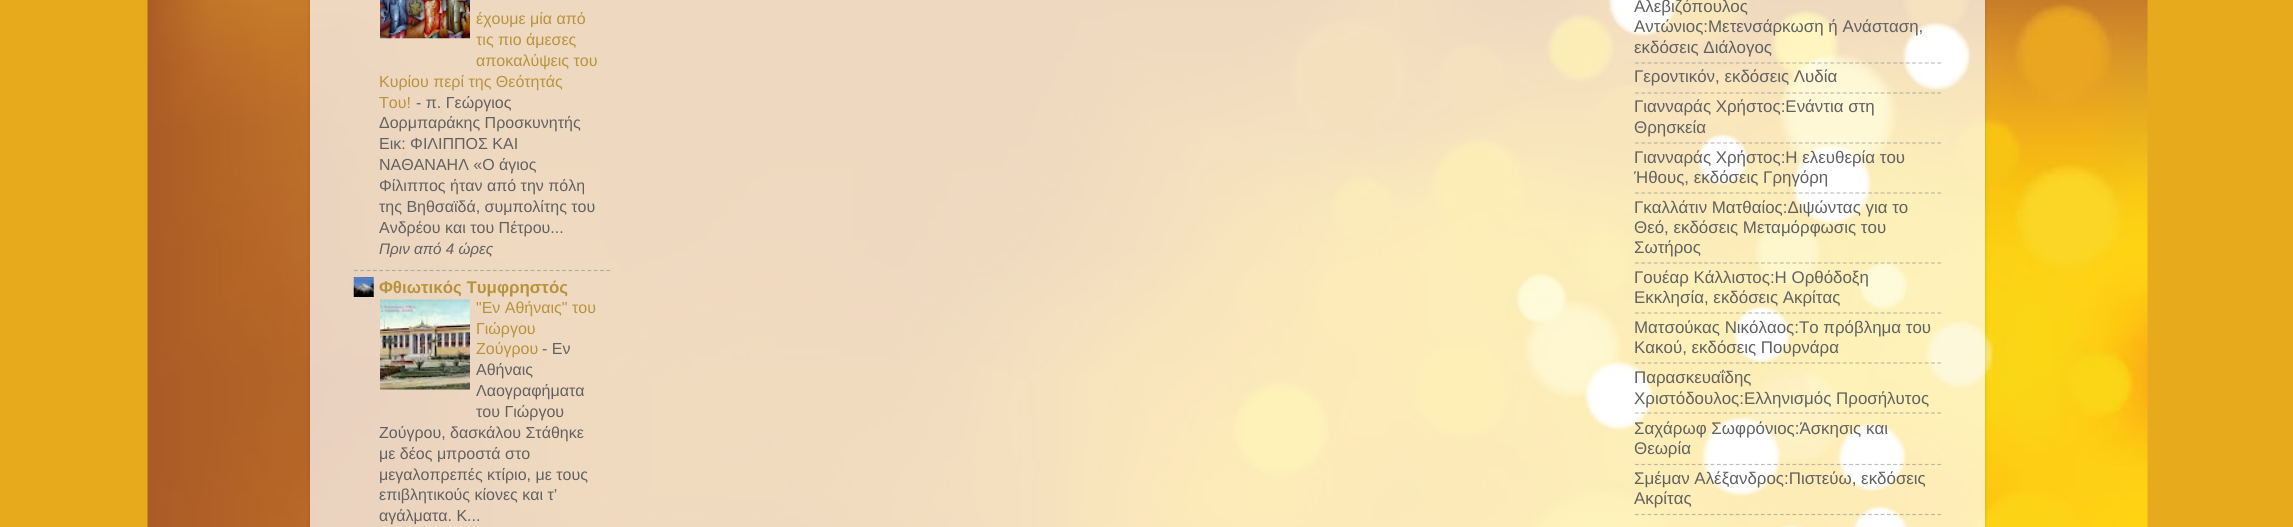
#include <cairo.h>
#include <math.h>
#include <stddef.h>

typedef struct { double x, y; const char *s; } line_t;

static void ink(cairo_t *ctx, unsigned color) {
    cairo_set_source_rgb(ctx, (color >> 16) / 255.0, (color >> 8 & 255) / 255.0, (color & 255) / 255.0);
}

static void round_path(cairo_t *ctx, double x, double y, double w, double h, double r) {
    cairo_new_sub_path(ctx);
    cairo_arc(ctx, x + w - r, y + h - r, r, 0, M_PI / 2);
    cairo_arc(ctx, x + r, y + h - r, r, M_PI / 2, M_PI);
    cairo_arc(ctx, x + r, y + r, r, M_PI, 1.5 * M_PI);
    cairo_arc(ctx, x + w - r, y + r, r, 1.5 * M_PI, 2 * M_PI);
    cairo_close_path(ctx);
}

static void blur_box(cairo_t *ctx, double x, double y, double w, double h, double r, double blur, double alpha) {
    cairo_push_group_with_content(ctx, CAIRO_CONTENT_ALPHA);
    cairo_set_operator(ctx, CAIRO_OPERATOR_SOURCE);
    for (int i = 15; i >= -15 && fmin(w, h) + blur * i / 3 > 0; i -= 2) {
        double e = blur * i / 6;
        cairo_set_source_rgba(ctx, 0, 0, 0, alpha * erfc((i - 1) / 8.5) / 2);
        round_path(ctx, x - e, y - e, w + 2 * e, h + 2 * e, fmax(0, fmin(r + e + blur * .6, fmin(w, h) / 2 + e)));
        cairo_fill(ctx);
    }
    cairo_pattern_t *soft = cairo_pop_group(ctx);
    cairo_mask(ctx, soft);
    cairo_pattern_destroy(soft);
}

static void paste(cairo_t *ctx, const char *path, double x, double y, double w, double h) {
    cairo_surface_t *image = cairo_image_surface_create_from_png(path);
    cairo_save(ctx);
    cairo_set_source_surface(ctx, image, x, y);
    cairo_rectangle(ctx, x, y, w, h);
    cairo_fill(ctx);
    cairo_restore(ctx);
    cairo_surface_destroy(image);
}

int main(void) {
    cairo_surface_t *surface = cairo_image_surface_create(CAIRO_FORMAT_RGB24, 2293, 527);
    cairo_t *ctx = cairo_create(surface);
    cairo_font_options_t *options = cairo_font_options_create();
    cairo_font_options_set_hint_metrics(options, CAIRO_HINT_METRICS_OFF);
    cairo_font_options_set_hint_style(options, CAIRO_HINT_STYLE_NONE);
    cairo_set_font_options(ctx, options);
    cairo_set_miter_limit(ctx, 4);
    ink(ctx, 0xE7AA1C);
    cairo_paint(ctx);
    paste(ctx, "media/1.png", 147, 0, 2001, 527);
    cairo_save(ctx);
    cairo_set_fill_rule(ctx, CAIRO_FILL_RULE_EVEN_ODD);
    cairo_new_path(ctx);
    cairo_move_to(ctx, 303, 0);
    cairo_line_to(ctx, 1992, 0);
    cairo_line_to(ctx, 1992, 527);
    cairo_line_to(ctx, 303, 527);
    cairo_close_path(ctx);
    cairo_move_to(ctx, 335, -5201);
    cairo_line_to(ctx, 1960, -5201);
    cairo_curve_to(ctx, 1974, -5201, 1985, -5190, 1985, -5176);
    cairo_line_to(ctx, 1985, 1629);
    cairo_line_to(ctx, 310, 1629);
    cairo_line_to(ctx, 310, -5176);
    cairo_curve_to(ctx, 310, -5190, 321, -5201, 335, -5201);
    cairo_close_path(ctx);
    cairo_clip(ctx);
    ink(ctx, 0x000000);
    blur_box(ctx, 310, -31, 1675, 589, 25, 2, 0.15);
    cairo_restore(ctx);
    cairo_set_source_rgba(ctx, 1, 1, 1, 0.7);
    cairo_rectangle(ctx, 310, 0, 1675, 527);
    cairo_fill(ctx);
    paste(ctx, "media/2.png", 380, 0, 90, 39);
    cairo_select_font_face(ctx, "Liberation Sans", CAIRO_FONT_SLANT_NORMAL, CAIRO_FONT_WEIGHT_NORMAL);
    cairo_set_font_size(ctx, 16);
    ink(ctx, 0xB8933D);
    {
        static const line_t items[] = {
            {476, 24, "έχουμε μία από"},
            {476, 45, "τις πιο άμεσες"},
            {476, 66, "αποκαλύψεις του"},
            {379, 87, "Κυρίου περί της Θεότητάς"},
            {379, 108, "Του!"},
        };
        for (size_t i = 0; i < sizeof items / sizeof *items; i++) {
            cairo_move_to(ctx, items[i].x, items[i].y);
            cairo_show_text(ctx, items[i].s);
        }
    }
    ink(ctx, 0x616161);
    {
        static const line_t items[] = {
            {416, 108, "- π. Γεώργιος"},
            {379, 128, "Δορμπαράκης Προσκυνητής"},
            {379, 149, "Εικ: ΦΙΛΙΠΠΟΣ ΚΑΙ"},
            {379, 170, "ΝΑΘΑΝΑΗΛ «Ο άγιος"},
            {379, 191, "Φίλιππος ήταν από την πόλη"},
            {379, 212, "της Βηθσαϊδά, συμπολίτης του"},
            {379, 233, "Ανδρέου και του Πέτρου..."},
        };
        for (size_t i = 0; i < sizeof items / sizeof *items; i++) {
            cairo_move_to(ctx, items[i].x, items[i].y);
            cairo_show_text(ctx, items[i].s);
        }
    }
    cairo_select_font_face(ctx, "Liberation Sans", CAIRO_FONT_SLANT_ITALIC, CAIRO_FONT_WEIGHT_NORMAL);
    cairo_set_font_size(ctx, 15.25);
    cairo_move_to(ctx, 379, 254);
    cairo_show_text(ctx, "Πριν από 4 ώρες");
    cairo_new_path(ctx);
    cairo_move_to(ctx, 354, 270.5);
    cairo_line_to(ctx, 610, 270.5);
    cairo_set_source_rgba(ctx, 0.502, 0.502, 0.502, 0.5);
    cairo_set_line_width(ctx, 1.2);
    cairo_set_dash(ctx, (double[]){3.75, 2.56}, 2, 0);
    cairo_stroke(ctx);
    paste(ctx, "media/3.png", 353, 277, 21, 20);
    cairo_select_font_face(ctx, "Liberation Sans", CAIRO_FONT_SLANT_NORMAL, CAIRO_FONT_WEIGHT_BOLD);
    cairo_set_font_size(ctx, 16.9);
    ink(ctx, 0xB8933D);
    cairo_move_to(ctx, 379, 293);
    cairo_show_text(ctx, "Φθιωτικός Τυμφρηστός");
    paste(ctx, "media/4.png", 380, 299, 90, 91);
    cairo_select_font_face(ctx, "Liberation Sans", CAIRO_FONT_SLANT_NORMAL, CAIRO_FONT_WEIGHT_NORMAL);
    cairo_set_font_size(ctx, 16);
    {
        static const line_t items[] = {
            {476, 313, "\"Εν Αθήναις\" του"},
            {476, 334, "Γιώργου"},
            {476, 354, "Ζούγρου"},
        };
        for (size_t i = 0; i < sizeof items / sizeof *items; i++) {
            cairo_move_to(ctx, items[i].x, items[i].y);
            cairo_show_text(ctx, items[i].s);
        }
    }
    ink(ctx, 0x616161);
    {
        static const line_t items[] = {
            {542, 354, "- Εν"},
            {476, 375, "Αθήναις"},
            {476, 396, "Λαογραφήματα"},
            {476, 417, "του Γιώργου"},
            {379, 438, "Ζούγρου, δασκάλου Στάθηκε"},
            {379, 459, "με δέος μπροστά στο"},
            {379, 480, "μεγαλοπρεπές κτίριο, με τους"},
            {379, 500, "επιβλητικούς κίονες και τ’"},
            {379, 521, "αγάλματα. Κ..."},
        };
        for (size_t i = 0; i < sizeof items / sizeof *items; i++) {
            cairo_move_to(ctx, items[i].x, items[i].y);
            cairo_show_text(ctx, items[i].s);
        }
    }
    cairo_set_font_size(ctx, 16.9);
    {
        static const line_t items[] = {
            {1634, 12, "Αλεβιζόπουλος"},
            {1634, 32, "Αντώνιος:Μετενσάρκωση ή Ανάσταση,"},
            {1634, 53, "εκδόσεις Διάλογος"},
        };
        for (size_t i = 0; i < sizeof items / sizeof *items; i++) {
            cairo_move_to(ctx, items[i].x, items[i].y);
            cairo_show_text(ctx, items[i].s);
        }
    }
    cairo_new_path(ctx);
    cairo_move_to(ctx, 1635, 63);
    cairo_line_to(ctx, 1941, 63);
    cairo_set_source_rgba(ctx, 0.502, 0.502, 0.502, 0.5);
    cairo_set_dash(ctx, (double[]){3.75, 2.55}, 2, 0);
    cairo_stroke(ctx);
    ink(ctx, 0x616161);
    cairo_move_to(ctx, 1634, 82);
    cairo_show_text(ctx, "Γεροντικόν, εκδόσεις Λυδία");
    cairo_new_path(ctx);
    cairo_move_to(ctx, 1635, 93);
    cairo_line_to(ctx, 1941, 93);
    cairo_set_source_rgba(ctx, 0.502, 0.502, 0.502, 0.5);
    cairo_stroke(ctx);
    ink(ctx, 0x616161);
    cairo_move_to(ctx, 1634, 112);
    cairo_show_text(ctx, "Γιανναράς Χρήστος:Ενάντια στη");
    cairo_move_to(ctx, 1634, 133);
    cairo_show_text(ctx, "Θρησκεία");
    cairo_new_path(ctx);
    cairo_move_to(ctx, 1635, 143);
    cairo_line_to(ctx, 1941, 143);
    cairo_set_source_rgba(ctx, 0.502, 0.502, 0.502, 0.5);
    cairo_stroke(ctx);
    ink(ctx, 0x616161);
    cairo_move_to(ctx, 1634, 163);
    cairo_show_text(ctx, "Γιανναράς Χρήστος:Η ελευθερία του");
    cairo_move_to(ctx, 1634, 183);
    cairo_show_text(ctx, "Ήθους, εκδόσεις Γρηγόρη");
    cairo_new_path(ctx);
    cairo_move_to(ctx, 1635, 193);
    cairo_line_to(ctx, 1941, 193);
    cairo_set_source_rgba(ctx, 0.502, 0.502, 0.502, 0.5);
    cairo_stroke(ctx);
    ink(ctx, 0x616161);
    {
        static const line_t items[] = {
            {1634, 213, "Γκαλλάτιν Ματθαίος:Διψώντας για το"},
            {1634, 233, "Θεό, εκδόσεις Μεταμόρφωσις του"},
            {1634, 253, "Σωτήρος"},
        };
        for (size_t i = 0; i < sizeof items / sizeof *items; i++) {
            cairo_move_to(ctx, items[i].x, items[i].y);
            cairo_show_text(ctx, items[i].s);
        }
    }
    cairo_new_path(ctx);
    cairo_move_to(ctx, 1635, 263);
    cairo_line_to(ctx, 1941, 263);
    cairo_set_source_rgba(ctx, 0.502, 0.502, 0.502, 0.5);
    cairo_stroke(ctx);
    ink(ctx, 0x616161);
    cairo_move_to(ctx, 1634, 283);
    cairo_show_text(ctx, "Γουέαρ Κάλλιστος:Η Ορθόδοξη");
    cairo_move_to(ctx, 1634, 303);
    cairo_show_text(ctx, "Εκκλησία, εκδόσεις Ακρίτας");
    cairo_new_path(ctx);
    cairo_move_to(ctx, 1635, 313);
    cairo_line_to(ctx, 1941, 313);
    cairo_set_source_rgba(ctx, 0.502, 0.502, 0.502, 0.5);
    cairo_stroke(ctx);
    ink(ctx, 0x616161);
    cairo_move_to(ctx, 1634, 333);
    cairo_show_text(ctx, "Ματσούκας Νικόλαος:Το πρόβλημα του");
    cairo_move_to(ctx, 1634, 353);
    cairo_show_text(ctx, "Κακού, εκδόσεις Πουρνάρα");
    cairo_new_path(ctx);
    cairo_move_to(ctx, 1635, 363);
    cairo_line_to(ctx, 1941, 363);
    cairo_set_source_rgba(ctx, 0.502, 0.502, 0.502, 0.5);
    cairo_stroke(ctx);
    ink(ctx, 0x616161);
    cairo_move_to(ctx, 1634, 383);
    cairo_show_text(ctx, "Παρασκευαΐδης");
    cairo_move_to(ctx, 1634, 404);
    cairo_show_text(ctx, "Χριστόδουλος:Ελληνισμός Προσήλυτος");
    cairo_new_path(ctx);
    cairo_move_to(ctx, 1635, 413);
    cairo_line_to(ctx, 1941, 413);
    cairo_set_source_rgba(ctx, 0.502, 0.502, 0.502, 0.5);
    cairo_stroke(ctx);
    ink(ctx, 0x616161);
    cairo_move_to(ctx, 1634, 434);
    cairo_show_text(ctx, "Σαχάρωφ Σωφρόνιος:Άσκησις και");
    cairo_move_to(ctx, 1634, 454);
    cairo_show_text(ctx, "Θεωρία");
    cairo_new_path(ctx);
    cairo_move_to(ctx, 1635, 464.5);
    cairo_line_to(ctx, 1941, 464.5);
    cairo_set_source_rgba(ctx, 0.502, 0.502, 0.502, 0.5);
    cairo_stroke(ctx);
    ink(ctx, 0x616161);
    cairo_move_to(ctx, 1634, 484);
    cairo_show_text(ctx, "Σμέμαν Αλέξανδρος:Πιστεύω, εκδόσεις");
    cairo_move_to(ctx, 1634, 504);
    cairo_show_text(ctx, "Ακρίτας");
    cairo_new_path(ctx);
    cairo_move_to(ctx, 1635, 514.5);
    cairo_line_to(ctx, 1941, 514.5);
    cairo_set_source_rgba(ctx, 0.502, 0.502, 0.502, 0.5);
    cairo_stroke(ctx);
    cairo_surface_write_to_png(surface, "image.png");
    cairo_font_options_destroy(options);
    cairo_destroy(ctx);
    cairo_surface_destroy(surface);
    return 0;
}
